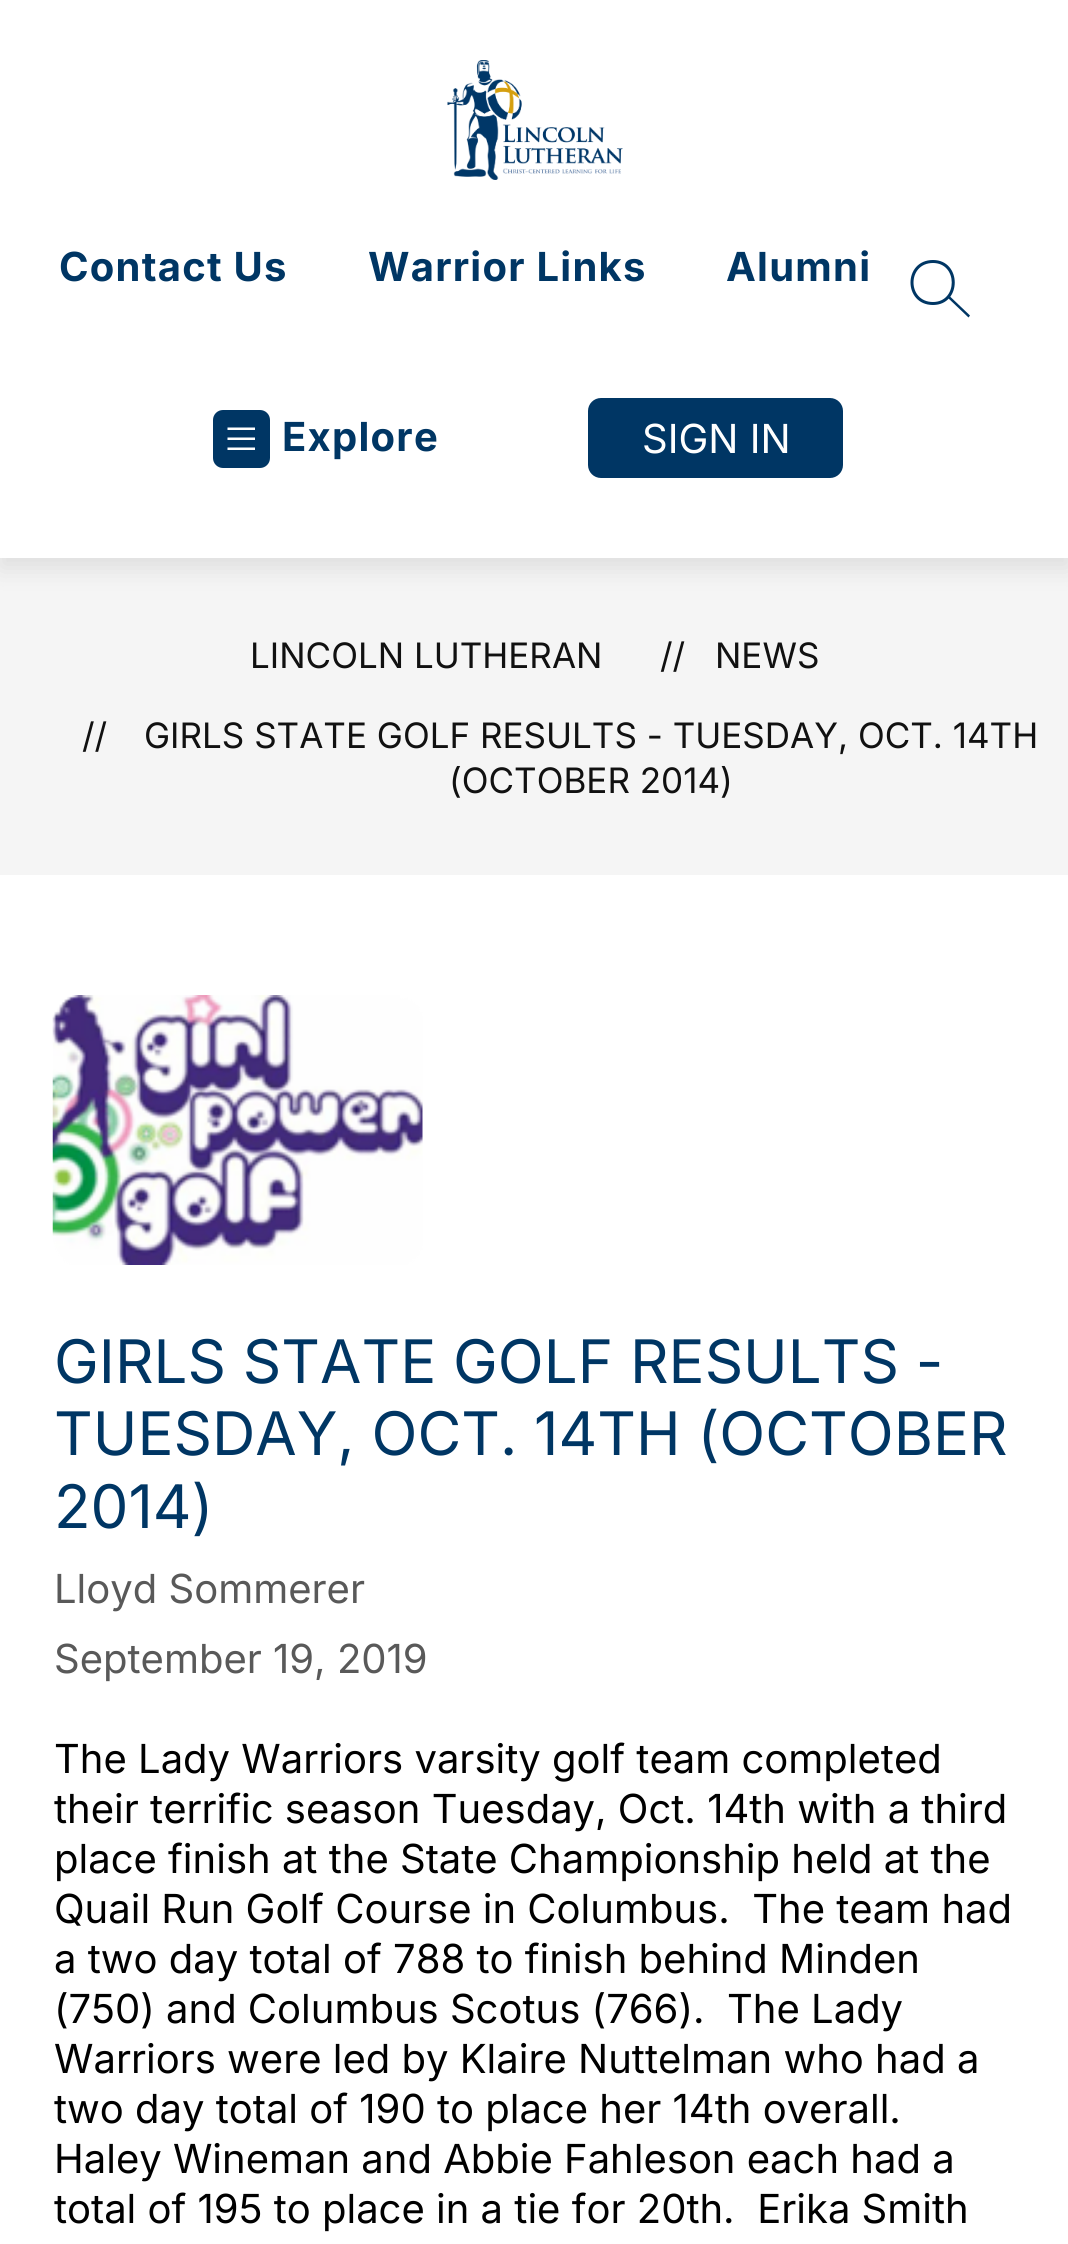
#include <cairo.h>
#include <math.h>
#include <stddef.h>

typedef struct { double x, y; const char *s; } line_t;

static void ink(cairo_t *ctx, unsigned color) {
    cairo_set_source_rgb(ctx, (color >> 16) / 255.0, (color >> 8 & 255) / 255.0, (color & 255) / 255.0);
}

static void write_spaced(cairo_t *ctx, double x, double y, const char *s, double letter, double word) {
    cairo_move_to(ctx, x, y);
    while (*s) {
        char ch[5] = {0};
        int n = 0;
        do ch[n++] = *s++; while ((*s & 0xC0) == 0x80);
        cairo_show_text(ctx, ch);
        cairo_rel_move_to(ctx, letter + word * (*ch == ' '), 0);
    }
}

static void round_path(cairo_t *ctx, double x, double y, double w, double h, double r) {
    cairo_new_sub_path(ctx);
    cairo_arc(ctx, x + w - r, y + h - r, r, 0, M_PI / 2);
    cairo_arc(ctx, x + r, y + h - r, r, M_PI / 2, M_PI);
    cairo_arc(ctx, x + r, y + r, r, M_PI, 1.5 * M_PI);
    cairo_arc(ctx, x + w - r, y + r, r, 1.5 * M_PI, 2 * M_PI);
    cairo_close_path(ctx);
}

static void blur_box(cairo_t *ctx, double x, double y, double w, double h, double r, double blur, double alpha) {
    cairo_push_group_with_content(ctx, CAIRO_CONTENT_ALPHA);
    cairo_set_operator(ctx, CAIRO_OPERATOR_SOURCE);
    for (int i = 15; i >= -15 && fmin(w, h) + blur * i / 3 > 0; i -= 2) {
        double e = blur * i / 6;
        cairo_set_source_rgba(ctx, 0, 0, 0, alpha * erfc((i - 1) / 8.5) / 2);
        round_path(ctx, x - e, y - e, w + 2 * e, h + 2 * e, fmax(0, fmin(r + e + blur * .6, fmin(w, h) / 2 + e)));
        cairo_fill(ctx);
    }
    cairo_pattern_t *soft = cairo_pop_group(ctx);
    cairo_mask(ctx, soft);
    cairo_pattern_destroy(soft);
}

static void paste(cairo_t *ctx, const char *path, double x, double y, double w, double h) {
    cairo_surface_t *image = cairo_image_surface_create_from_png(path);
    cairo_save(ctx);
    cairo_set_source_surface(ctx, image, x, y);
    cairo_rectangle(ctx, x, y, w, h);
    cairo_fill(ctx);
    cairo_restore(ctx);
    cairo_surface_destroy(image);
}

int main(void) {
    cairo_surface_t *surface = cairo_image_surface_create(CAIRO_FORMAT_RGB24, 1068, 2244);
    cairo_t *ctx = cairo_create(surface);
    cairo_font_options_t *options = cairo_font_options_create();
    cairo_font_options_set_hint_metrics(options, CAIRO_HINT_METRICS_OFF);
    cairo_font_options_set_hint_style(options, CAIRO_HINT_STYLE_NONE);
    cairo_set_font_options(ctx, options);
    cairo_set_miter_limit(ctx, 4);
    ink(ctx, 0xFFFFFF);
    cairo_paint(ctx);
    ink(ctx, 0xF5F5F5);
    cairo_rectangle(ctx, 0, 558, 1068, 317);
    cairo_fill(ctx);
    ink(ctx, 0x000000);
    blur_box(ctx, 0, 10, 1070, 558, 0, 12.5, 0.1);
    ink(ctx, 0xFFFFFF);
    cairo_rectangle(ctx, 0, 0, 1068, 558);
    cairo_fill(ctx);
    paste(ctx, "media/1.png", 447, 60, 176, 120);
    cairo_select_font_face(ctx, "Inter", CAIRO_FONT_SLANT_NORMAL, CAIRO_FONT_WEIGHT_BOLD);
    cairo_set_font_size(ctx, 40);
    ink(ctx, 0x003664);
    {
        static const line_t items[] = {
            {59, 281, "Contact Us"},
            {368, 281, "Warrior Links"},
            {726, 281, "Alumni"},
        };
        for (size_t i = 0; i < sizeof items / sizeof *items; i++) {
            write_spaced(ctx, items[i].x, items[i].y, items[i].s, 1.25, 0);
        }
    }
    cairo_set_fill_rule(ctx, CAIRO_FILL_RULE_EVEN_ODD);
    cairo_new_path(ctx);
    cairo_move_to(ctx, 933, 302);
    cairo_curve_to(ctx, 958, 302, 958, 263, 933, 263);
    cairo_curve_to(ctx, 907, 263, 907, 302, 933, 302);
    cairo_close_path(ctx);
    cairo_move_to(ctx, 933, 305);
    cairo_curve_to(ctx, 962, 305, 962, 260, 933, 260);
    cairo_curve_to(ctx, 903, 260, 903, 305, 933, 305);
    cairo_close_path(ctx);
    cairo_fill(ctx);
    cairo_new_path(ctx);
    cairo_move_to(ctx, 968.5, 317.5);
    cairo_line_to(ctx, 948, 298);
    cairo_line_to(ctx, 949.5, 296);
    cairo_line_to(ctx, 970, 315.5);
    cairo_close_path(ctx);
    cairo_fill(ctx);
    round_path(ctx, 213, 410, 57, 58, 10);
    cairo_fill(ctx);
    ink(ctx, 0xFFFFFF);
    cairo_new_path(ctx);
    cairo_move_to(ctx, 227.5, 427.5);
    cairo_line_to(ctx, 255, 427.5);
    cairo_line_to(ctx, 255, 430);
    cairo_line_to(ctx, 227.5, 430);
    cairo_close_path(ctx);
    cairo_move_to(ctx, 227.5, 437.5);
    cairo_line_to(ctx, 255, 437.5);
    cairo_line_to(ctx, 255, 440);
    cairo_line_to(ctx, 227.5, 440);
    cairo_close_path(ctx);
    cairo_move_to(ctx, 255, 447.5);
    cairo_line_to(ctx, 227.5, 447.5);
    cairo_line_to(ctx, 227.5, 450);
    cairo_line_to(ctx, 255, 450);
    cairo_close_path(ctx);
    cairo_fill(ctx);
    ink(ctx, 0x003664);
    write_spaced(ctx, 282, 451, "Explore", 1.25, 0);
    round_path(ctx, 589.5, 399.5, 252, 77, 11.5);
    cairo_fill_preserve(ctx);
    cairo_set_line_width(ctx, 3);
    cairo_stroke(ctx);
    cairo_select_font_face(ctx, "Inter", CAIRO_FONT_SLANT_NORMAL, CAIRO_FONT_WEIGHT_NORMAL);
    ink(ctx, 0xFFFFFF);
    cairo_move_to(ctx, 642, 453);
    cairo_show_text(ctx, "SIGN IN");
    cairo_set_font_size(ctx, 35);
    ink(ctx, 0x111111);
    {
        static const line_t items[] = {
            {250, 668, "LINCOLN LUTHERAN"},
            {660, 668, "//"},
            {715, 668, "NEWS"},
            {82, 748, "//"},
            {144, 748, "GIRLS STATE GOLF RESULTS - TUESDAY, OCT. 14TH"},
            {449, 793, "(OCTOBER 2014)"},
        };
        for (size_t i = 0; i < sizeof items / sizeof *items; i++) {
            cairo_move_to(ctx, items[i].x, items[i].y);
            cairo_show_text(ctx, items[i].s);
        }
    }
    paste(ctx, "media/2.png", 52, 995, 371, 270);
    cairo_set_font_size(ctx, 60);
    ink(ctx, 0x003664);
    {
        static const line_t items[] = {
            {54, 1383, "GIRLS STATE GOLF RESULTS -"},
            {54, 1455, "TUESDAY, OCT. 14TH (OCTOBER"},
            {54, 1528, "2014)"},
        };
        for (size_t i = 0; i < sizeof items / sizeof *items; i++) {
            cairo_move_to(ctx, items[i].x, items[i].y);
            cairo_show_text(ctx, items[i].s);
        }
    }
    cairo_set_font_size(ctx, 40);
    ink(ctx, 0x595959);
    cairo_move_to(ctx, 54, 1603);
    cairo_show_text(ctx, "Lloyd Sommerer");
    cairo_move_to(ctx, 54, 1673);
    cairo_show_text(ctx, "September 19, 2019");
    ink(ctx, 0x000000);
    {
        static const line_t items[] = {
            {54, 1773, "The Lady Warriors varsity golf team completed"},
            {54, 1823, "their terrific season Tuesday, Oct. 14th with a third"},
            {54, 1873, "place finish at the State Championship held at the"},
            {54, 1923, "Quail Run Golf Course in Columbus.  The team had"},
            {54, 1973, "a two day total of 788 to finish behind Minden"},
            {54, 2023, "(750) and Columbus Scotus (766).  The Lady"},
            {54, 2073, "Warriors were led by Klaire Nuttelman who had a"},
            {54, 2123, "two day total of 190 to place her 14th overall."},
            {54, 2173, "Haley Wineman and Abbie Fahleson each had a"},
            {54, 2223, "total of 195 to place in a tie for 20th.  Erika Smith"},
        };
        for (size_t i = 0; i < sizeof items / sizeof *items; i++) {
            cairo_move_to(ctx, items[i].x, items[i].y);
            cairo_show_text(ctx, items[i].s);
        }
    }
    cairo_surface_write_to_png(surface, "image.png");
    cairo_font_options_destroy(options);
    cairo_destroy(ctx);
    cairo_surface_destroy(surface);
    return 0;
}
